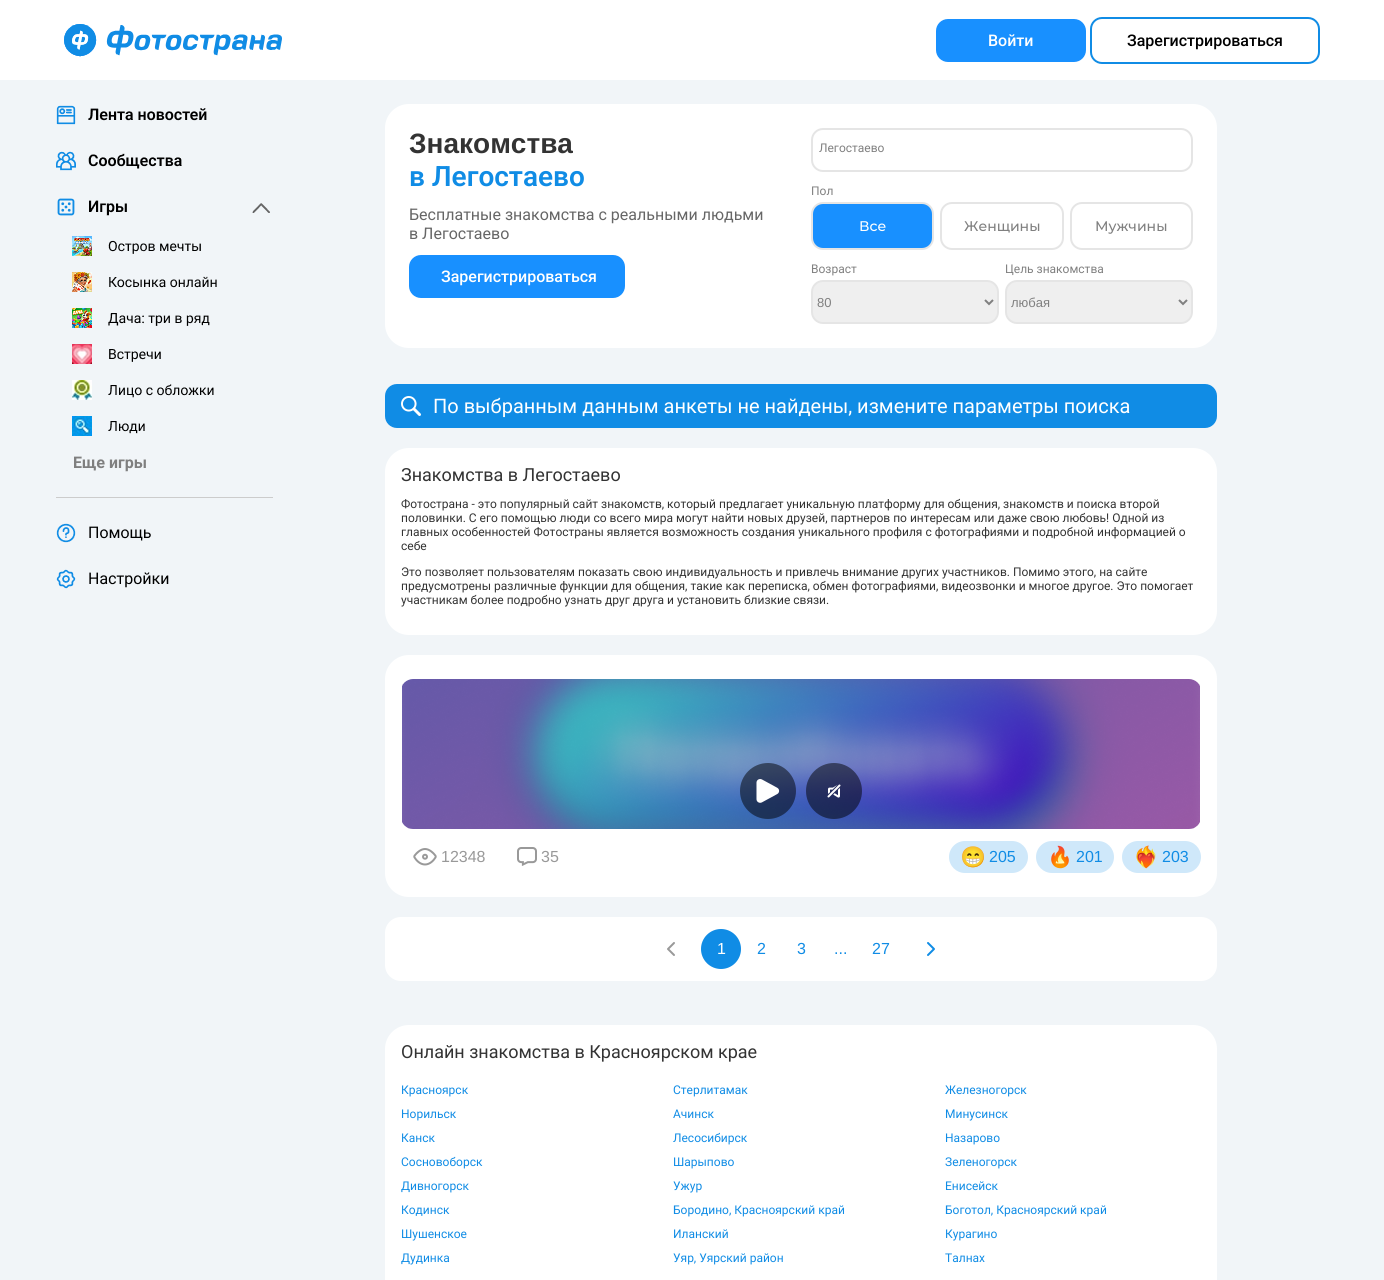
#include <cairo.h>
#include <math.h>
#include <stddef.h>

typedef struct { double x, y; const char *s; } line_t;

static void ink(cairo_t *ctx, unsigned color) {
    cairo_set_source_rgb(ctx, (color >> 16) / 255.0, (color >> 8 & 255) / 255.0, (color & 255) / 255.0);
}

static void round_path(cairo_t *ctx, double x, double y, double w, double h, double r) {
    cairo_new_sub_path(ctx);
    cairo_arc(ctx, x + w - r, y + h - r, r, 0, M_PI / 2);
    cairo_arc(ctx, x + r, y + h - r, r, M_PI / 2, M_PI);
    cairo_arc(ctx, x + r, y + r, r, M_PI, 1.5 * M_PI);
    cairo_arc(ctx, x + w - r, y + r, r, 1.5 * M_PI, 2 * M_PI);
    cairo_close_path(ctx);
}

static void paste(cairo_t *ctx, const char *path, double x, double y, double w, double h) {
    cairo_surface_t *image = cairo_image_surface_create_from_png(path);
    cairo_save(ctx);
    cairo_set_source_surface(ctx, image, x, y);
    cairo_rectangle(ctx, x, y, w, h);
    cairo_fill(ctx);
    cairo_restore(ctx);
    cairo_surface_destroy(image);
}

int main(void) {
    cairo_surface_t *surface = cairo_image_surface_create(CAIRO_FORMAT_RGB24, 1384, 1280);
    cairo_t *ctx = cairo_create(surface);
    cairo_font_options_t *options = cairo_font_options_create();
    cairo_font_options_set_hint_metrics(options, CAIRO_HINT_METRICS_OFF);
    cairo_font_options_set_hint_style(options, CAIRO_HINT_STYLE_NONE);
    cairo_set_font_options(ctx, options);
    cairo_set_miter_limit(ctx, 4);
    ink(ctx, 0xF1F5F8);
    cairo_paint(ctx);
    ink(ctx, 0xFFFFFF);
    cairo_rectangle(ctx, 0, 0, 1384, 80);
    cairo_fill(ctx);
    paste(ctx, "media/1.png", 64, 24, 218, 33);
    ink(ctx, 0x1890FF);
    round_path(ctx, 936, 19, 150, 43, 12);
    cairo_fill(ctx);
    cairo_select_font_face(ctx, "Roboto Medium", CAIRO_FONT_SLANT_NORMAL, CAIRO_FONT_WEIGHT_NORMAL);
    cairo_set_font_size(ctx, 16);
    ink(ctx, 0xFFFFFF);
    cairo_move_to(ctx, 988, 46);
    cairo_show_text(ctx, "Войти");
    round_path(ctx, 1091, 18, 228, 45, 11);
    ink(ctx, 0x108CE5);
    cairo_stroke(ctx);
    ink(ctx, 0x000000);
    cairo_move_to(ctx, 1127, 46);
    cairo_show_text(ctx, "Зарегистрироваться");
    paste(ctx, "media/2.png", 56, 105, 217, 484);
    ink(ctx, 0xFFFFFF);
    round_path(ctx, 385, 104, 832, 244, 24);
    cairo_fill(ctx);
    cairo_select_font_face(ctx, "Liberation Sans", CAIRO_FONT_SLANT_NORMAL, CAIRO_FONT_WEIGHT_BOLD);
    cairo_set_font_size(ctx, 28);
    ink(ctx, 0x333333);
    cairo_move_to(ctx, 409, 153);
    cairo_show_text(ctx, "Знакомства");
    cairo_select_font_face(ctx, "Roboto SemiBold", CAIRO_FONT_SLANT_NORMAL, CAIRO_FONT_WEIGHT_NORMAL);
    ink(ctx, 0x108CE5);
    cairo_move_to(ctx, 409, 186);
    cairo_show_text(ctx, "в Легостаево");
    cairo_select_font_face(ctx, "Roboto", CAIRO_FONT_SLANT_NORMAL, CAIRO_FONT_WEIGHT_NORMAL);
    cairo_set_font_size(ctx, 16);
    ink(ctx, 0x666666);
    cairo_move_to(ctx, 409, 220);
    cairo_show_text(ctx, "Бесплатные знакомства с реальными людьми");
    cairo_move_to(ctx, 409, 239);
    cairo_show_text(ctx, "в Легостаево");
    ink(ctx, 0x1890FF);
    round_path(ctx, 409, 255, 216, 43, 12);
    cairo_fill(ctx);
    cairo_select_font_face(ctx, "Roboto Medium", CAIRO_FONT_SLANT_NORMAL, CAIRO_FONT_WEIGHT_NORMAL);
    ink(ctx, 0xFFFFFF);
    cairo_move_to(ctx, 441, 282);
    cairo_show_text(ctx, "Зарегистрироваться");
    round_path(ctx, 812, 129, 380, 42, 11);
    ink(ctx, 0xE5E5E5);
    cairo_stroke(ctx);
    cairo_select_font_face(ctx, "Roboto", CAIRO_FONT_SLANT_NORMAL, CAIRO_FONT_WEIGHT_NORMAL);
    cairo_set_font_size(ctx, 12);
    ink(ctx, 0x808080);
    cairo_move_to(ctx, 819, 152);
    cairo_show_text(ctx, "Легостаево");
    cairo_move_to(ctx, 811, 195);
    cairo_show_text(ctx, "Пол");
    ink(ctx, 0x1890FF);
    round_path(ctx, 812, 203, 121, 46, 11);
    cairo_fill_preserve(ctx);
    ink(ctx, 0xE5E5E5);
    cairo_stroke(ctx);
    cairo_select_font_face(ctx, "Montserrat Medium", CAIRO_FONT_SLANT_NORMAL, CAIRO_FONT_WEIGHT_NORMAL);
    cairo_set_font_size(ctx, 14);
    ink(ctx, 0xFFFFFF);
    cairo_move_to(ctx, 859, 231);
    cairo_show_text(ctx, "Все");
    round_path(ctx, 941, 203, 122, 46, 11);
    ink(ctx, 0xE5E5E5);
    cairo_stroke(ctx);
    ink(ctx, 0x808080);
    cairo_move_to(ctx, 964, 231);
    cairo_show_text(ctx, "Женщины");
    round_path(ctx, 1071, 203, 121, 46, 11);
    ink(ctx, 0xE5E5E5);
    cairo_stroke(ctx);
    ink(ctx, 0x808080);
    cairo_move_to(ctx, 1095, 231);
    cairo_show_text(ctx, "Мужчины");
    cairo_select_font_face(ctx, "Roboto", CAIRO_FONT_SLANT_NORMAL, CAIRO_FONT_WEIGHT_NORMAL);
    cairo_set_font_size(ctx, 12);
    cairo_move_to(ctx, 811, 273);
    cairo_show_text(ctx, "Возраст");
    ink(ctx, 0xEFEFEF);
    round_path(ctx, 812, 281, 186, 42, 11);
    cairo_fill_preserve(ctx);
    ink(ctx, 0xE5E5E5);
    cairo_stroke(ctx);
    cairo_new_path(ctx);
    cairo_move_to(ctx, 985, 300);
    cairo_line_to(ctx, 989, 304);
    cairo_line_to(ctx, 993, 300);
    ink(ctx, 0x808080);
    cairo_stroke(ctx);
    cairo_select_font_face(ctx, "Liberation Sans", CAIRO_FONT_SLANT_NORMAL, CAIRO_FONT_WEIGHT_NORMAL);
    cairo_set_font_size(ctx, 13);
    cairo_move_to(ctx, 817, 307);
    cairo_show_text(ctx, "80");
    cairo_select_font_face(ctx, "Roboto", CAIRO_FONT_SLANT_NORMAL, CAIRO_FONT_WEIGHT_NORMAL);
    cairo_set_font_size(ctx, 12);
    cairo_move_to(ctx, 1005, 273);
    cairo_show_text(ctx, "Цель знакомства");
    ink(ctx, 0xEFEFEF);
    round_path(ctx, 1006, 281, 186, 42, 11);
    cairo_fill_preserve(ctx);
    ink(ctx, 0xE5E5E5);
    cairo_stroke(ctx);
    cairo_new_path(ctx);
    cairo_move_to(ctx, 1179, 300);
    cairo_line_to(ctx, 1183, 304);
    cairo_line_to(ctx, 1187, 300);
    ink(ctx, 0x808080);
    cairo_stroke(ctx);
    cairo_select_font_face(ctx, "Liberation Sans", CAIRO_FONT_SLANT_NORMAL, CAIRO_FONT_WEIGHT_NORMAL);
    cairo_set_font_size(ctx, 13);
    cairo_move_to(ctx, 1011, 307);
    cairo_show_text(ctx, "любая");
    ink(ctx, 0x108CE5);
    round_path(ctx, 385, 384, 832, 44, 12);
    cairo_fill(ctx);
    paste(ctx, "media/3.png", 401, 396, 20, 20);
    cairo_select_font_face(ctx, "Roboto", CAIRO_FONT_SLANT_NORMAL, CAIRO_FONT_WEIGHT_NORMAL);
    cairo_set_font_size(ctx, 20);
    ink(ctx, 0xFFFFFF);
    cairo_move_to(ctx, 433, 413);
    cairo_show_text(ctx, "По выбранным данным анкеты не найдены, измените параметры поиска");
    round_path(ctx, 385, 448, 832, 187, 24);
    cairo_fill(ctx);
    cairo_set_font_size(ctx, 18);
    ink(ctx, 0x333333);
    cairo_move_to(ctx, 401, 481);
    cairo_show_text(ctx, "Знакомства в Легостаево");
    cairo_set_font_size(ctx, 12);
    {
        static const line_t items[] = {
            {401, 508, "Фотострана - это популярный сайт знакомств, который предлагает уникальную платформу для общения, знакомств и поиска второй"},
            {401, 522, "половинки. С его помощью люди со всего мира могут найти новых друзей, партнеров по интересам или даже свою любовь! Одной из"},
            {401, 536, "главных особенностей Фотостраны является возможность создания уникального профиля с фотографиями и подробной информацией о"},
            {401, 550, "себе"},
            {401, 576, "Это позволяет пользователям показать свою индивидуальность и привлечь внимание других участников. Помимо этого, на сайте"},
            {401, 590, "предусмотрены различные функции для общения, такие как переписка, обмен фотографиями, видеозвонки и многое другое. Это помогает"},
            {401, 604, "участникам более подробно узнать друг друга и установить близкие связи."},
        };
        for (size_t i = 0; i < sizeof items / sizeof *items; i++) {
            cairo_move_to(ctx, items[i].x, items[i].y);
            cairo_show_text(ctx, items[i].s);
        }
    }
    ink(ctx, 0xFFFFFF);
    round_path(ctx, 385, 655, 832, 242, 24);
    cairo_fill(ctx);
    paste(ctx, "media/4.png", 402, 679, 798, 150);
    cairo_set_source_rgba(ctx, 0, 0, 0, 0.5);
    cairo_arc(ctx, 768, 791, 28, 0, 2 * M_PI);
    cairo_fill(ctx);
    paste(ctx, "media/5.png", 756, 779, 24, 24);
    cairo_arc(ctx, 834, 791, 28, 0, 2 * M_PI);
    cairo_fill(ctx);
    paste(ctx, "media/6.png", 827, 784, 14, 14);
    paste(ctx, "media/7.png", 413, 848, 24, 18);
    cairo_select_font_face(ctx, "Liberation Sans", CAIRO_FONT_SLANT_NORMAL, CAIRO_FONT_WEIGHT_NORMAL);
    cairo_set_font_size(ctx, 16);
    ink(ctx, 0x999999);
    cairo_move_to(ctx, 441, 862);
    cairo_show_text(ctx, "12348");
    paste(ctx, "media/8.png", 517, 847, 20, 19);
    cairo_move_to(ctx, 541, 862);
    cairo_show_text(ctx, "35");
    ink(ctx, 0xCFE8FA);
    round_path(ctx, 949, 841, 79, 32, 16);
    cairo_fill(ctx);
    paste(ctx, "media/9.png", 962, 846, 22, 22);
    ink(ctx, 0x108CE5);
    cairo_move_to(ctx, 989, 862);
    cairo_show_text(ctx, "205");
    ink(ctx, 0xCFE8FA);
    round_path(ctx, 1036, 841, 78, 32, 16);
    cairo_fill(ctx);
    paste(ctx, "media/10.png", 1051, 845, 18, 24);
    ink(ctx, 0x108CE5);
    cairo_move_to(ctx, 1076, 862);
    cairo_show_text(ctx, "201");
    ink(ctx, 0xCFE8FA);
    round_path(ctx, 1122, 841, 79, 32, 16);
    cairo_fill(ctx);
    paste(ctx, "media/11.png", 1136, 845, 20, 24);
    ink(ctx, 0x108CE5);
    cairo_move_to(ctx, 1162, 862);
    cairo_show_text(ctx, "203");
    ink(ctx, 0xFFFFFF);
    round_path(ctx, 385, 917, 832, 64, 16);
    cairo_fill(ctx);
    cairo_new_path(ctx);
    cairo_move_to(ctx, 674, 943);
    cairo_line_to(ctx, 668, 949);
    cairo_line_to(ctx, 674, 955);
    ink(ctx, 0x999999);
    cairo_set_line_cap(ctx, CAIRO_LINE_CAP_ROUND);
    cairo_set_line_join(ctx, CAIRO_LINE_JOIN_ROUND);
    cairo_stroke(ctx);
    ink(ctx, 0x108CE5);
    cairo_arc(ctx, 721, 949, 20, 0, 2 * M_PI);
    cairo_fill(ctx);
    ink(ctx, 0xFFFFFF);
    cairo_move_to(ctx, 717, 954);
    cairo_show_text(ctx, "1");
    ink(ctx, 0x108CE5);
    {
        static const line_t items[] = {
            {757, 954, "2"},
            {797, 954, "3"},
            {834, 954, "..."},
            {872, 954, "27"},
        };
        for (size_t i = 0; i < sizeof items / sizeof *items; i++) {
            cairo_move_to(ctx, items[i].x, items[i].y);
            cairo_show_text(ctx, items[i].s);
        }
    }
    cairo_new_path(ctx);
    cairo_move_to(ctx, 928, 955);
    cairo_line_to(ctx, 934, 949);
    cairo_line_to(ctx, 928, 943);
    cairo_stroke(ctx);
    ink(ctx, 0xFFFFFF);
    round_path(ctx, 385, 1025, 832, 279, 24);
    cairo_fill(ctx);
    cairo_select_font_face(ctx, "Roboto", CAIRO_FONT_SLANT_NORMAL, CAIRO_FONT_WEIGHT_NORMAL);
    cairo_set_font_size(ctx, 18);
    ink(ctx, 0x333333);
    cairo_move_to(ctx, 401, 1058);
    cairo_show_text(ctx, "Онлайн знакомства в Красноярском крае");
    cairo_set_font_size(ctx, 12);
    ink(ctx, 0x108CE5);
    {
        static const line_t items[] = {
            {401, 1094, "Красноярск"},
            {673, 1094, "Стерлитамак"},
            {945, 1094, "Железногорск"},
            {401, 1118, "Норильск"},
            {673, 1118, "Ачинск"},
            {945, 1118, "Минусинск"},
            {401, 1142, "Канск"},
            {673, 1142, "Лесосибирск"},
            {945, 1142, "Назарово"},
            {401, 1166, "Сосновоборск"},
            {673, 1166, "Шарыпово"},
            {945, 1166, "Зеленогорск"},
            {401, 1190, "Дивногорск"},
            {673, 1190, "Ужур"},
            {945, 1190, "Енисейск"},
            {401, 1214, "Кодинск"},
            {673, 1214, "Бородино, Красноярский край"},
            {945, 1214, "Боготол, Красноярский край"},
            {401, 1238, "Шушенское"},
            {673, 1238, "Иланский"},
            {945, 1238, "Курагино"},
            {401, 1262, "Дудинка"},
            {673, 1262, "Уяр, Уярский район"},
            {945, 1262, "Талнах"},
        };
        for (size_t i = 0; i < sizeof items / sizeof *items; i++) {
            cairo_move_to(ctx, items[i].x, items[i].y);
            cairo_show_text(ctx, items[i].s);
        }
    }
    cairo_surface_write_to_png(surface, "image.png");
    cairo_font_options_destroy(options);
    cairo_destroy(ctx);
    cairo_surface_destroy(surface);
    return 0;
}
